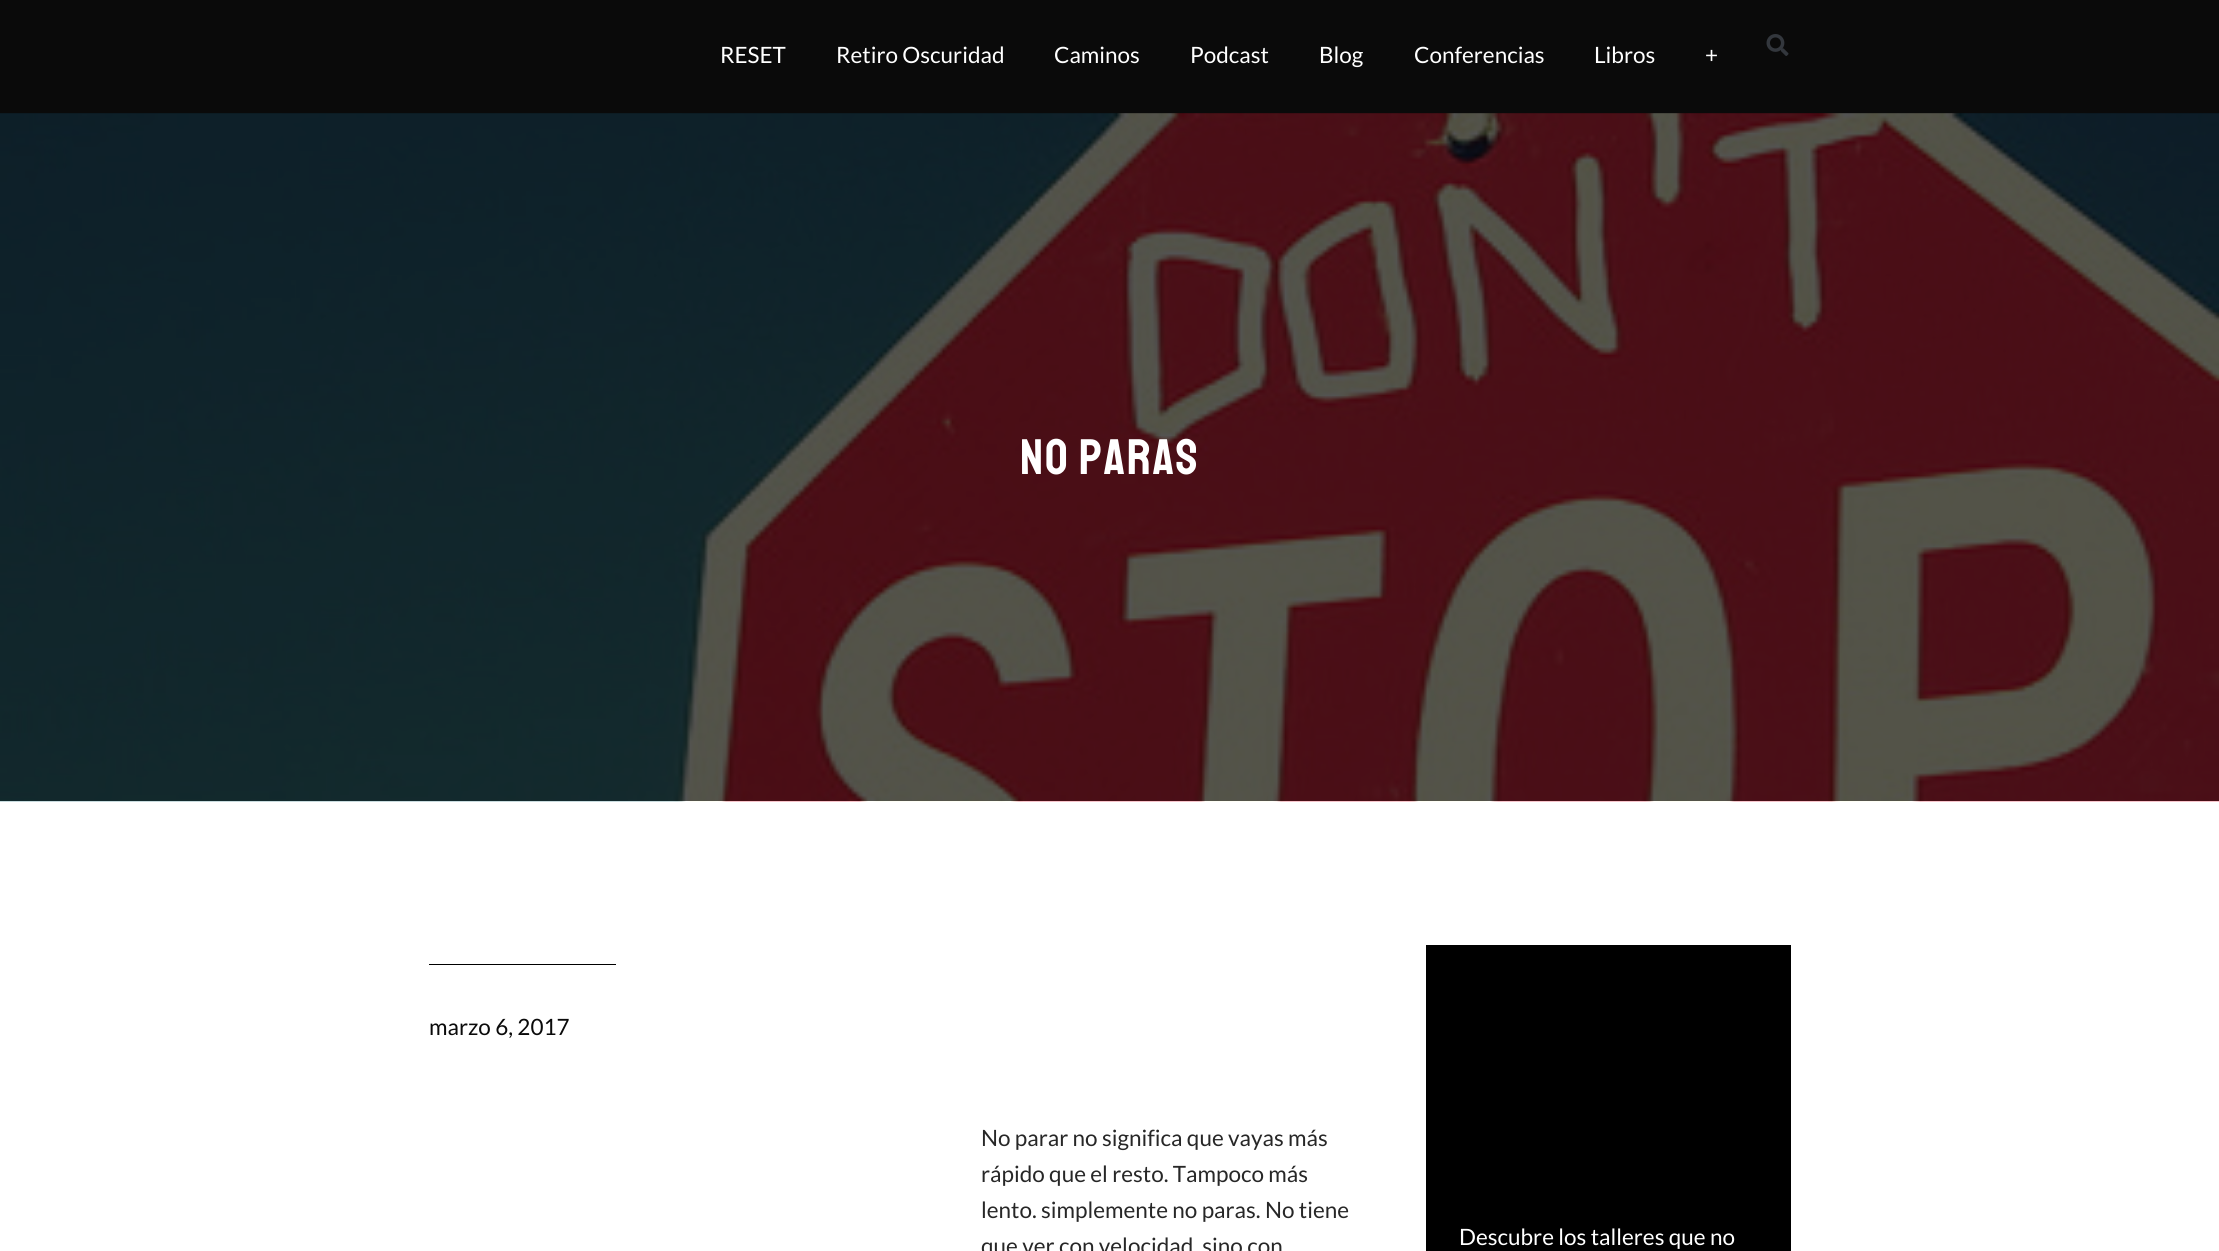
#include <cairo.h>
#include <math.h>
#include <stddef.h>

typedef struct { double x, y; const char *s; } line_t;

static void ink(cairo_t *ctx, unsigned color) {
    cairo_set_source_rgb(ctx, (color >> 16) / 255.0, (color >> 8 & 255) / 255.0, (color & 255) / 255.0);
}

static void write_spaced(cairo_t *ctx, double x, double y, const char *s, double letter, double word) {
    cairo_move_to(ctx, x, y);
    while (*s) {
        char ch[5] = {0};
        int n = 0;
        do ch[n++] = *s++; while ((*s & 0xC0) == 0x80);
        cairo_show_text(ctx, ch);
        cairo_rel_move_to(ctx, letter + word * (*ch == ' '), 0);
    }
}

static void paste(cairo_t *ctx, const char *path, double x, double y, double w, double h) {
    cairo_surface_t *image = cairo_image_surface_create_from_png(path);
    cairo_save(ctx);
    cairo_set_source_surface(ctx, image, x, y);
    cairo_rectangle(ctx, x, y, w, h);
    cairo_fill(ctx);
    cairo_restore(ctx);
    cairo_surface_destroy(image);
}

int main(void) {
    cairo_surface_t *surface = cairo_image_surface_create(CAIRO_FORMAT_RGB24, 2219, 1251);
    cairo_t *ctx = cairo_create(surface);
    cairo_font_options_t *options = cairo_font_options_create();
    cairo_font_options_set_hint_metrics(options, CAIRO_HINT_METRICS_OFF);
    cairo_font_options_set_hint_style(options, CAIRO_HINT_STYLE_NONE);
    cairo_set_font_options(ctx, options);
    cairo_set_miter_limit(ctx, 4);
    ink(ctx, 0xFFFFFF);
    cairo_paint(ctx);
    ink(ctx, 0x0A0A0A);
    cairo_rectangle(ctx, 0, 0, 2219, 114);
    cairo_fill(ctx);
    cairo_select_font_face(ctx, "Lato", CAIRO_FONT_SLANT_NORMAL, CAIRO_FONT_WEIGHT_NORMAL);
    cairo_set_font_size(ctx, 22.5);
    ink(ctx, 0xFFFFFF);
    {
        static const line_t items[] = {
            {720, 63, "RESET"},
            {836, 63, "Retiro Oscuridad"},
            {1054, 63, "Caminos"},
            {1190, 63, "Podcast"},
            {1319, 63, "Blog"},
            {1414, 63, "Conferencias"},
            {1594, 63, "Libros"},
            {1705, 63, "+"},
        };
        for (size_t i = 0; i < sizeof items / sizeof *items; i++) {
            cairo_move_to(ctx, items[i].x, items[i].y);
            cairo_show_text(ctx, items[i].s);
        }
    }
    paste(ctx, "media/1.png", 1766, 34, 23, 22);
    paste(ctx, "media/2.png", 0, 113, 2219, 689);
    cairo_select_font_face(ctx, "Staatliches", CAIRO_FONT_SLANT_NORMAL, CAIRO_FONT_WEIGHT_NORMAL);
    cairo_set_font_size(ctx, 50);
    write_spaced(ctx, 1020, 474, "No paras", 1.75, 0);
    ink(ctx, 0x000000);
    cairo_rectangle(ctx, 429, 964, 187, 1);
    cairo_fill(ctx);
    cairo_select_font_face(ctx, "Lato", CAIRO_FONT_SLANT_NORMAL, CAIRO_FONT_WEIGHT_NORMAL);
    cairo_set_font_size(ctx, 22.5);
    ink(ctx, 0x0A0A0A);
    cairo_move_to(ctx, 429, 1035);
    cairo_show_text(ctx, "marzo 6, 2017");
    ink(ctx, 0x272727);
    {
        static const line_t items[] = {
            {981, 1146, "No parar no significa que vayas más"},
            {981, 1182, "rápido que el resto. Tampoco más"},
            {981, 1218, "lento. simplemente no paras. No tiene"},
            {981, 1254, "que ver con velocidad, sino con"},
        };
        for (size_t i = 0; i < sizeof items / sizeof *items; i++) {
            cairo_move_to(ctx, items[i].x, items[i].y);
            cairo_show_text(ctx, items[i].s);
        }
    }
    ink(ctx, 0x000000);
    cairo_rectangle(ctx, 1426, 945, 365, 306);
    cairo_fill(ctx);
    ink(ctx, 0xFFFFFF);
    cairo_move_to(ctx, 1459, 1245);
    cairo_show_text(ctx, "Descubre los talleres que no");
    cairo_surface_write_to_png(surface, "image.png");
    cairo_font_options_destroy(options);
    cairo_destroy(ctx);
    cairo_surface_destroy(surface);
    return 0;
}
